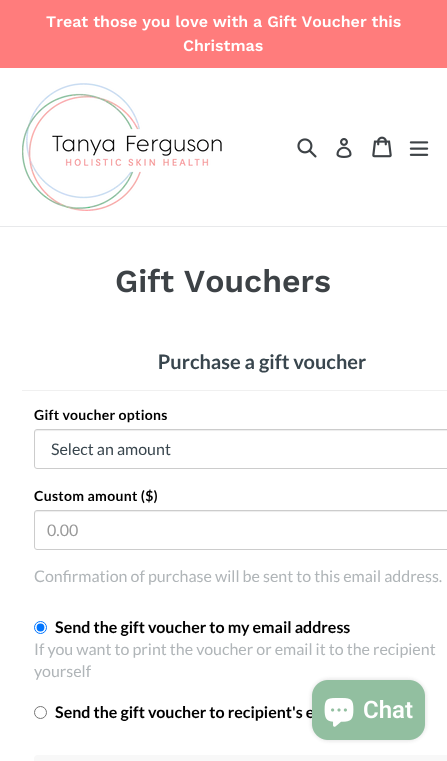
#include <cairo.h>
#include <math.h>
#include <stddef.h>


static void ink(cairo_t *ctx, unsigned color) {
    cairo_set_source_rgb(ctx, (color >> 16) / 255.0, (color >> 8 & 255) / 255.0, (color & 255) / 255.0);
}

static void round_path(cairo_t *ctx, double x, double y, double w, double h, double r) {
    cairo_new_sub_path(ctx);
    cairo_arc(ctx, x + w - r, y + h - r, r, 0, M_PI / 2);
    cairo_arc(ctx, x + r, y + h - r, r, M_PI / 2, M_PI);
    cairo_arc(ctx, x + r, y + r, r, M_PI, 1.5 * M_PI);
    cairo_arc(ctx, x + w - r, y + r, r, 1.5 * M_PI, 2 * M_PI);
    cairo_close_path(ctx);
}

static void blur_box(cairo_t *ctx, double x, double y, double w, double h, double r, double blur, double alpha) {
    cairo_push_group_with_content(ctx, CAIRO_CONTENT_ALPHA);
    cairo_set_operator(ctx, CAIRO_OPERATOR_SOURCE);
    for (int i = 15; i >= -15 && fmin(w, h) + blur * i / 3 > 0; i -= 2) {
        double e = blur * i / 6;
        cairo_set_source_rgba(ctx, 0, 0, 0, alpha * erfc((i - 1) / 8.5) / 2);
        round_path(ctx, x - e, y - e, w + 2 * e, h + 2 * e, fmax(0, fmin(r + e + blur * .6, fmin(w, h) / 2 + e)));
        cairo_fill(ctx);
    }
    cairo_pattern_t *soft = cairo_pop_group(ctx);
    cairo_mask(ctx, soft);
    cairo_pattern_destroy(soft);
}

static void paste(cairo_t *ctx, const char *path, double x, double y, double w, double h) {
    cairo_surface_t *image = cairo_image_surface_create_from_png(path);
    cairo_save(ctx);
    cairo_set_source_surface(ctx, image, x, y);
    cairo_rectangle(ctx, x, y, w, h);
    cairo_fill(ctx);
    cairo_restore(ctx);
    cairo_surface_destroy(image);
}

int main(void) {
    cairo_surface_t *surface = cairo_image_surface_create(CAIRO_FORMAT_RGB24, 447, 761);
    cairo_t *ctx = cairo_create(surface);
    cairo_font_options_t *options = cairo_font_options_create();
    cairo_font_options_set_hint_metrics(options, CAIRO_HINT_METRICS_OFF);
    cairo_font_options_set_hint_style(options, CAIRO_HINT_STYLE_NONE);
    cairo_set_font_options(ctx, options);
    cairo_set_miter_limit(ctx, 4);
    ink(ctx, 0xFFFFFF);
    cairo_paint(ctx);
    ink(ctx, 0xFF7C7C);
    cairo_rectangle(ctx, 0, 0, 447, 68);
    cairo_fill(ctx);
    cairo_select_font_face(ctx, "Work Sans SemiBold", CAIRO_FONT_SLANT_NORMAL, CAIRO_FONT_WEIGHT_NORMAL);
    cairo_set_font_size(ctx, 16);
    ink(ctx, 0xFFFFFF);
    cairo_move_to(ctx, 46, 27);
    cairo_show_text(ctx, "Treat those you love with a Gift Voucher this");
    cairo_move_to(ctx, 183, 51);
    cairo_show_text(ctx, "Christmas");
    ink(ctx, 0xE8E9EB);
    cairo_rectangle(ctx, 0, 226, 447, 1);
    cairo_fill(ctx);
    paste(ctx, "media/1.png", 22, 83, 200, 128);
    paste(ctx, "media/2.png", 297, 138, 20, 20);
    paste(ctx, "media/3.png", 336, 138, 16, 20);
    paste(ctx, "media/4.png", 372, 136, 20, 22);
    paste(ctx, "media/5.png", 409, 141, 20, 15);
    cairo_set_font_size(ctx, 32);
    ink(ctx, 0x3D4246);
    cairo_move_to(ctx, 115, 292);
    cairo_show_text(ctx, "Gift Vouchers");
    paste(ctx, "media/6.png", 22, 354, 425, 407);
    ink(ctx, 0x000000);
    blur_box(ctx, 312, 680, 113, 60, 16, 2.5, 0.15);
    ink(ctx, 0x92BFA0);
    round_path(ctx, 312, 680, 113, 60, 16);
    cairo_fill(ctx);
    paste(ctx, "media/7.png", 324, 698, 30, 29);
    cairo_select_font_face(ctx, "Roboto SemiBold", CAIRO_FONT_SLANT_NORMAL, CAIRO_FONT_WEIGHT_NORMAL);
    cairo_set_font_size(ctx, 24);
    ink(ctx, 0xFFFFFF);
    cairo_move_to(ctx, 363, 718);
    cairo_show_text(ctx, "Chat");
    cairo_surface_write_to_png(surface, "image.png");
    cairo_font_options_destroy(options);
    cairo_destroy(ctx);
    cairo_surface_destroy(surface);
    return 0;
}
